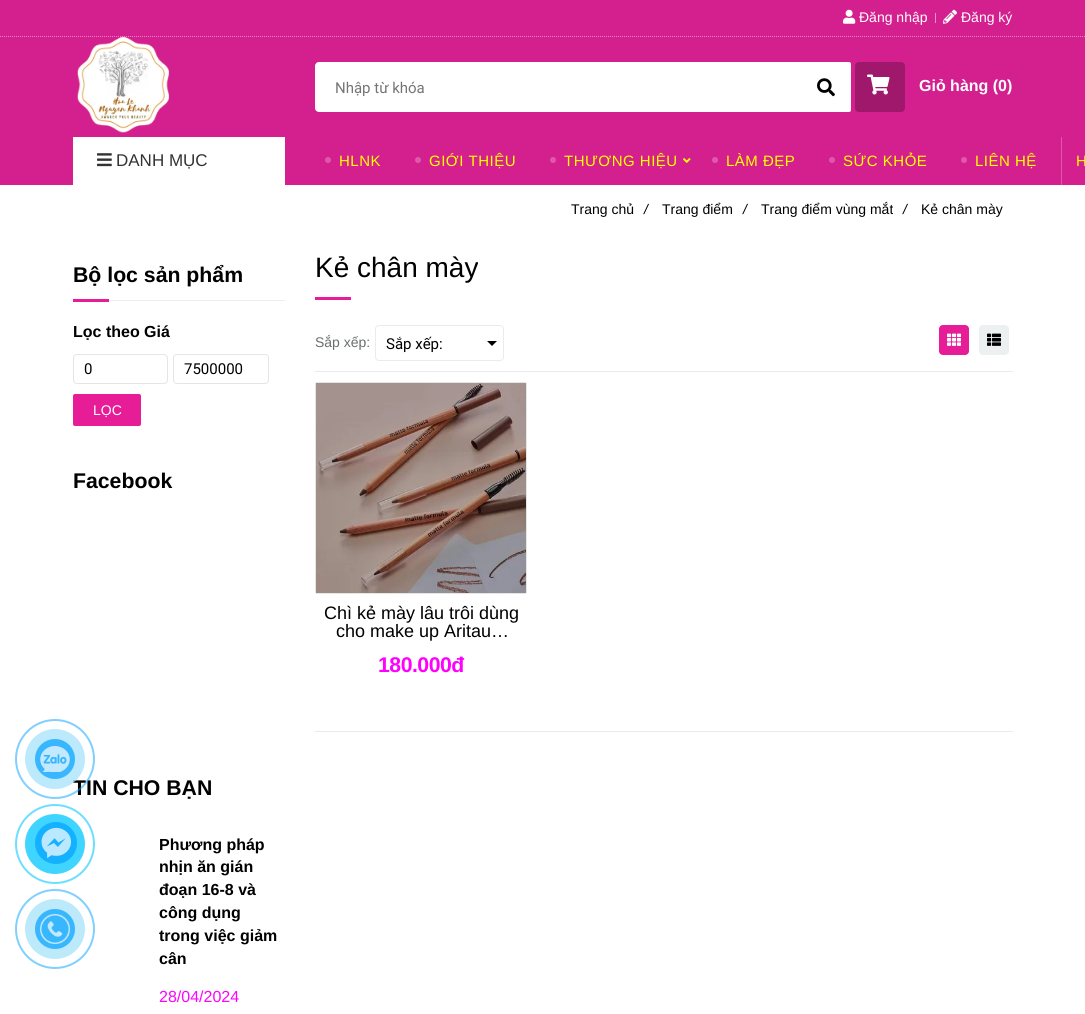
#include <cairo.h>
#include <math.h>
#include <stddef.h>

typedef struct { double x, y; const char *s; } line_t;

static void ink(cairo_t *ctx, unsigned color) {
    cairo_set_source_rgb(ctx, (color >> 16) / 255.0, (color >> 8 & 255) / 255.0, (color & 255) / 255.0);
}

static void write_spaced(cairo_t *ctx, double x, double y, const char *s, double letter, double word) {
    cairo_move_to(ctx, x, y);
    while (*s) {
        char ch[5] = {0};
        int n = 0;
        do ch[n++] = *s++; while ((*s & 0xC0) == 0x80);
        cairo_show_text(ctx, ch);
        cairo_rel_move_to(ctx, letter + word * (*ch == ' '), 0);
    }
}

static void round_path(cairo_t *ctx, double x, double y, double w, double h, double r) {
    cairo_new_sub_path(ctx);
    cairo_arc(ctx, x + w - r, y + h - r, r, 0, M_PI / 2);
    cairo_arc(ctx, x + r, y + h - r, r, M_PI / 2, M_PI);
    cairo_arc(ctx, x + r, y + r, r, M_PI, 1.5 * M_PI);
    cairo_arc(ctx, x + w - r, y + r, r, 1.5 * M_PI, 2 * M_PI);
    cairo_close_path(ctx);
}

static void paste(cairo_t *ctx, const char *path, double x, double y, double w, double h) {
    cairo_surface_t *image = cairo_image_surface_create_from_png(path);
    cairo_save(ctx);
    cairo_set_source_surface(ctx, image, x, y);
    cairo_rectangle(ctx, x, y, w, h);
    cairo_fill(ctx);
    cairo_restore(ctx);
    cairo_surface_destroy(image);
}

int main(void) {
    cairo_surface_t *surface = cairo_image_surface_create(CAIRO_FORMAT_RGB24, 1085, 1014);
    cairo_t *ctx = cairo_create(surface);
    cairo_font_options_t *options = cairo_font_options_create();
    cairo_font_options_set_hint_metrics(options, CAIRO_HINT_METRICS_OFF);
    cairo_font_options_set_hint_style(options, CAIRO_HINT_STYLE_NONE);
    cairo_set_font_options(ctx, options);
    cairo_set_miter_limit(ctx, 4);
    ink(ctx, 0xFFFFFF);
    cairo_paint(ctx);
    cairo_save(ctx);
    cairo_rectangle(ctx, 73, 763, 212, 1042);
    cairo_clip(ctx);
    cairo_select_font_face(ctx, "Liberation Sans", CAIRO_FONT_SLANT_NORMAL, CAIRO_FONT_WEIGHT_BOLD);
    cairo_set_font_size(ctx, 21.25);
    ink(ctx, 0x000000);
    cairo_move_to(ctx, 73, 795);
    cairo_show_text(ctx, "TIN CHO BẠN");
    cairo_restore(ctx);
    cairo_new_path(ctx);
    cairo_arc(ctx, 55, 759, 39, 0, 2 * M_PI);
    cairo_set_source_rgba(ctx, 0, 0.631, 1, 0.5);
    cairo_stroke(ctx);
    cairo_set_source_rgba(ctx, 0.651, 0.89, 0.98, 0.75);
    cairo_arc(ctx, 55, 759, 30, 0, 2 * M_PI);
    cairo_fill(ctx);
    ink(ctx, 0x38B7FE);
    cairo_arc(ctx, 55, 759, 20, 0, 2 * M_PI);
    cairo_fill(ctx);
    paste(ctx, "media/1.png", 40, 746, 30, 26);
    ink(ctx, 0xD4208E);
    cairo_rectangle(ctx, 0, 0, 1085, 185);
    cairo_fill(ctx);
    cairo_new_path(ctx);
    cairo_move_to(ctx, 0, 36.5);
    cairo_line_to(ctx, 1085, 36.5);
    ink(ctx, 0xE784C1);
    cairo_set_line_width(ctx, 1);
    cairo_set_dash(ctx, (double[]){1, 1}, 2, 0);
    cairo_stroke(ctx);
    paste(ctx, "media/2.png", 843, 9, 13, 15);
    cairo_select_font_face(ctx, "Liberation Sans", CAIRO_FONT_SLANT_NORMAL, CAIRO_FONT_WEIGHT_NORMAL);
    cairo_set_font_size(ctx, 14);
    ink(ctx, 0xFFFFFF);
    cairo_move_to(ctx, 859, 22);
    cairo_show_text(ctx, "Đăng nhập");
    ink(ctx, 0xEA90C7);
    cairo_rectangle(ctx, 935, 13, 1, 10);
    cairo_fill(ctx);
    paste(ctx, "media/3.png", 943, 9, 14, 15);
    ink(ctx, 0xFFFFFF);
    cairo_move_to(ctx, 961, 22);
    cairo_show_text(ctx, "Đăng ký");
    paste(ctx, "media/4.png", 77, 36, 93, 97);
    round_path(ctx, 315, 62, 536, 50, 4);
    cairo_fill(ctx);
    cairo_select_font_face(ctx, "Roboto", CAIRO_FONT_SLANT_NORMAL, CAIRO_FONT_WEIGHT_NORMAL);
    cairo_set_font_size(ctx, 15);
    ink(ctx, 0x757575);
    cairo_move_to(ctx, 335, 93);
    cairo_show_text(ctx, "Nhập từ khóa");
    ink(ctx, 0xFFFFFF);
    round_path(ctx, 801, 62, 50, 50, 2);
    cairo_fill(ctx);
    paste(ctx, "media/5.png", 817, 78, 18, 19);
    ink(ctx, 0x9F186B);
    round_path(ctx, 855, 62, 50, 50, 4);
    cairo_fill(ctx);
    paste(ctx, "media/6.png", 867, 74, 23, 21);
    cairo_select_font_face(ctx, "Liberation Sans", CAIRO_FONT_SLANT_NORMAL, CAIRO_FONT_WEIGHT_BOLD);
    cairo_set_font_size(ctx, 16);
    ink(ctx, 0xFFFFFF);
    cairo_move_to(ctx, 919, 91);
    cairo_show_text(ctx, "Giỏ hàng (0)");
    cairo_rectangle(ctx, 73, 137, 212, 48);
    cairo_fill(ctx);
    paste(ctx, "media/7.png", 97, 153, 15, 14);
    cairo_select_font_face(ctx, "Liberation Sans", CAIRO_FONT_SLANT_NORMAL, CAIRO_FONT_WEIGHT_NORMAL);
    cairo_set_font_size(ctx, 17);
    ink(ctx, 0x333333);
    cairo_move_to(ctx, 116, 166);
    cairo_show_text(ctx, "DANH MỤC");
    ink(ctx, 0xDF58AA);
    cairo_new_path(ctx);
    cairo_arc(ctx, 328, 160, 3, 0, 2 * M_PI);
    cairo_fill(ctx);
    cairo_set_font_size(ctx, 15);
    ink(ctx, 0xFFFF00);
    write_spaced(ctx, 339, 166, "HLNK", 0.5, 0);
    ink(ctx, 0xDF58AA);
    cairo_new_path(ctx);
    cairo_arc(ctx, 418, 160, 3, 0, 2 * M_PI);
    cairo_fill(ctx);
    ink(ctx, 0xFFFF00);
    write_spaced(ctx, 429, 166, "GIỚI THIỆU", 0.5, 0);
    ink(ctx, 0xDF58AA);
    cairo_new_path(ctx);
    cairo_arc(ctx, 553, 160, 3, 0, 2 * M_PI);
    cairo_fill(ctx);
    ink(ctx, 0xFFFF00);
    write_spaced(ctx, 564, 166, "THƯƠNG HIỆU", 0.5, 0);
    paste(ctx, "media/8.png", 683, 158, 8, 5);
    ink(ctx, 0xDF58AA);
    cairo_arc(ctx, 715, 160, 3, 0, 2 * M_PI);
    cairo_fill(ctx);
    ink(ctx, 0xFFFF00);
    write_spaced(ctx, 726, 166, "LÀM ĐẸP", 0.5, 0);
    ink(ctx, 0xDF58AA);
    cairo_new_path(ctx);
    cairo_arc(ctx, 832, 160, 3, 0, 2 * M_PI);
    cairo_fill(ctx);
    ink(ctx, 0xFFFF00);
    write_spaced(ctx, 843, 166, "SỨC KHỎE", 0.5, 0);
    ink(ctx, 0xDF58AA);
    cairo_new_path(ctx);
    cairo_arc(ctx, 964, 160, 3, 0, 2 * M_PI);
    cairo_fill(ctx);
    ink(ctx, 0xFFFF00);
    write_spaced(ctx, 975, 166, "LIÊN HỆ", 0.5, 0);
    ink(ctx, 0xDF58AA);
    cairo_rectangle(ctx, 1061, 137, 1, 48);
    cairo_fill(ctx);
    ink(ctx, 0xFFFF00);
    write_spaced(ctx, 1076, 166, "H", 0.5, 0);
    cairo_set_font_size(ctx, 14);
    ink(ctx, 0x000000);
    cairo_move_to(ctx, 571, 214);
    cairo_show_text(ctx, "Trang chủ");
    cairo_select_font_face(ctx, "Liberation Sans", CAIRO_FONT_SLANT_ITALIC, CAIRO_FONT_WEIGHT_NORMAL);
    cairo_move_to(ctx, 644, 214);
    cairo_show_text(ctx, "/");
    cairo_select_font_face(ctx, "Liberation Sans", CAIRO_FONT_SLANT_NORMAL, CAIRO_FONT_WEIGHT_NORMAL);
    cairo_move_to(ctx, 662, 214);
    cairo_show_text(ctx, "Trang điểm");
    cairo_select_font_face(ctx, "Liberation Sans", CAIRO_FONT_SLANT_ITALIC, CAIRO_FONT_WEIGHT_NORMAL);
    cairo_move_to(ctx, 743, 214);
    cairo_show_text(ctx, "/");
    cairo_select_font_face(ctx, "Liberation Sans", CAIRO_FONT_SLANT_NORMAL, CAIRO_FONT_WEIGHT_NORMAL);
    cairo_move_to(ctx, 761, 214);
    cairo_show_text(ctx, "Trang điểm vùng mắt");
    cairo_select_font_face(ctx, "Liberation Sans", CAIRO_FONT_SLANT_ITALIC, CAIRO_FONT_WEIGHT_NORMAL);
    cairo_move_to(ctx, 903, 214);
    cairo_show_text(ctx, "/");
    cairo_select_font_face(ctx, "Liberation Sans", CAIRO_FONT_SLANT_NORMAL, CAIRO_FONT_WEIGHT_NORMAL);
    cairo_move_to(ctx, 921, 214);
    cairo_show_text(ctx, "Kẻ chân mày");
    ink(ctx, 0xEEEEEE);
    cairo_rectangle(ctx, 109, 300, 176, 1);
    cairo_fill(ctx);
    cairo_select_font_face(ctx, "Liberation Sans", CAIRO_FONT_SLANT_NORMAL, CAIRO_FONT_WEIGHT_BOLD);
    cairo_set_font_size(ctx, 21.25);
    ink(ctx, 0x000000);
    cairo_move_to(ctx, 73, 282);
    cairo_show_text(ctx, "Bộ lọc sản phẩm");
    ink(ctx, 0xE71D98);
    cairo_rectangle(ctx, 73, 299, 36, 3);
    cairo_fill(ctx);
    cairo_set_font_size(ctx, 16);
    ink(ctx, 0x000000);
    cairo_move_to(ctx, 73, 337);
    cairo_show_text(ctx, "Lọc theo Giá");
    round_path(ctx, 73.5, 354.5, 94, 29, 3.5);
    ink(ctx, 0xE2E6E7);
    cairo_set_dash(ctx, NULL, 0, 0);
    cairo_stroke(ctx);
    cairo_select_font_face(ctx, "Roboto", CAIRO_FONT_SLANT_NORMAL, CAIRO_FONT_WEIGHT_NORMAL);
    cairo_set_font_size(ctx, 15);
    ink(ctx, 0x000000);
    cairo_move_to(ctx, 84, 374);
    cairo_show_text(ctx, "0");
    round_path(ctx, 173.5, 354.5, 95, 29, 3.5);
    ink(ctx, 0xE2E6E7);
    cairo_stroke(ctx);
    ink(ctx, 0x000000);
    cairo_move_to(ctx, 184, 374);
    cairo_show_text(ctx, "7500000");
    ink(ctx, 0xE71D98);
    round_path(ctx, 73, 394, 68, 32, 2);
    cairo_fill(ctx);
    cairo_select_font_face(ctx, "Liberation Sans", CAIRO_FONT_SLANT_NORMAL, CAIRO_FONT_WEIGHT_NORMAL);
    cairo_set_font_size(ctx, 14);
    ink(ctx, 0xFFFFFF);
    cairo_move_to(ctx, 93, 415);
    cairo_show_text(ctx, "LỌC");
    cairo_select_font_face(ctx, "Liberation Sans", CAIRO_FONT_SLANT_NORMAL, CAIRO_FONT_WEIGHT_BOLD);
    cairo_set_font_size(ctx, 21.25);
    ink(ctx, 0x000000);
    cairo_move_to(ctx, 73, 488);
    cairo_show_text(ctx, "Facebook");
    cairo_set_font_size(ctx, 16);
    {
        static const line_t items[] = {
            {159, 850, "Phương pháp"},
            {159, 872, "nhịn ăn gián"},
            {159, 895, "đoạn 16-8 và"},
            {159, 918, "công dụng"},
            {159, 941, "trong việc giảm"},
            {159, 964, "cân"},
        };
        for (size_t i = 0; i < sizeof items / sizeof *items; i++) {
            cairo_move_to(ctx, items[i].x, items[i].y);
            cairo_show_text(ctx, items[i].s);
        }
    }
    cairo_select_font_face(ctx, "Liberation Sans", CAIRO_FONT_SLANT_NORMAL, CAIRO_FONT_WEIGHT_NORMAL);
    ink(ctx, 0xFF00FF);
    cairo_move_to(ctx, 159, 1002);
    cairo_show_text(ctx, "28/04/2024");
    cairo_set_font_size(ctx, 28);
    ink(ctx, 0x000000);
    cairo_move_to(ctx, 315, 277);
    cairo_show_text(ctx, "Kẻ chân mày");
    ink(ctx, 0xE71D98);
    cairo_rectangle(ctx, 315, 297, 36, 3);
    cairo_fill(ctx);
    cairo_set_font_size(ctx, 14);
    ink(ctx, 0x696E6E);
    cairo_move_to(ctx, 315, 347);
    cairo_show_text(ctx, "Sắp xếp:");
    round_path(ctx, 375.5, 325.5, 128, 35, 3.5);
    ink(ctx, 0xEBEBEB);
    cairo_stroke(ctx);
    cairo_select_font_face(ctx, "Roboto", CAIRO_FONT_SLANT_NORMAL, CAIRO_FONT_WEIGHT_NORMAL);
    cairo_set_font_size(ctx, 15);
    ink(ctx, 0x000000);
    cairo_move_to(ctx, 386, 349);
    cairo_show_text(ctx, "Sắp xếp:");
    cairo_new_path(ctx);
    cairo_move_to(ctx, 487, 341);
    cairo_line_to(ctx, 497, 341);
    cairo_line_to(ctx, 492, 346);
    cairo_close_path(ctx);
    cairo_fill(ctx);
    ink(ctx, 0xE71D98);
    round_path(ctx, 939, 325, 30, 30, 4);
    cairo_fill(ctx);
    paste(ctx, "media/9.png", 947, 333, 14, 13);
    ink(ctx, 0xECF0F1);
    round_path(ctx, 979, 325, 30, 30, 4);
    cairo_fill(ctx);
    paste(ctx, "media/10.png", 987, 333, 14, 13);
    cairo_rectangle(ctx, 315, 371, 698, 1);
    cairo_fill(ctx);
    cairo_new_path(ctx);
    cairo_move_to(ctx, 315, 371.5);
    cairo_line_to(ctx, 1013, 371.5);
    ink(ctx, 0xE2E6E7);
    cairo_set_dash(ctx, (double[]){1, 1}, 2, 0);
    cairo_stroke(ctx);
    round_path(ctx, 315.5, 382.5, 211, 211, 1.5);
    ink(ctx, 0xE5E5E5);
    cairo_set_dash(ctx, NULL, 0, 0);
    cairo_stroke(ctx);
    paste(ctx, "media/11.png", 316, 383, 210, 210);
    cairo_select_font_face(ctx, "Liberation Sans", CAIRO_FONT_SLANT_NORMAL, CAIRO_FONT_WEIGHT_NORMAL);
    cairo_set_font_size(ctx, 18);
    ink(ctx, 0x000000);
    cairo_move_to(ctx, 324, 619);
    cairo_show_text(ctx, "Chì kẻ mày lâu trôi dùng");
    cairo_move_to(ctx, 336, 637);
    cairo_show_text(ctx, "cho make up Aritau…");
    cairo_select_font_face(ctx, "Liberation Sans", CAIRO_FONT_SLANT_NORMAL, CAIRO_FONT_WEIGHT_BOLD);
    cairo_set_font_size(ctx, 21.25);
    ink(ctx, 0xFF00FF);
    write_spaced(ctx, 378, 672, "180.000đ", -0.5, 0);
    ink(ctx, 0xECF0F1);
    cairo_rectangle(ctx, 315, 731, 698, 1);
    cairo_fill(ctx);
    cairo_new_path(ctx);
    cairo_move_to(ctx, 315, 731.5);
    cairo_line_to(ctx, 1013, 731.5);
    ink(ctx, 0xE2E6E7);
    cairo_set_dash(ctx, (double[]){1, 1}, 2, 0);
    cairo_stroke(ctx);
    cairo_arc(ctx, 55, 844, 39, 0, 2 * M_PI);
    ink(ctx, 0x6CDFFF);
    cairo_set_line_width(ctx, 2);
    cairo_set_dash(ctx, NULL, 0, 0);
    cairo_stroke(ctx);
    ink(ctx, 0x40D5FF);
    cairo_arc(ctx, 55, 844, 30, 0, 2 * M_PI);
    cairo_fill(ctx);
    ink(ctx, 0x13B1FF);
    cairo_arc(ctx, 56, 843, 21, 0, 2 * M_PI);
    cairo_fill(ctx);
    paste(ctx, "media/12.png", 41, 827, 30, 31);
    cairo_arc(ctx, 55, 929, 39, 0, 2 * M_PI);
    ink(ctx, 0x80D0FF);
    cairo_stroke(ctx);
    ink(ctx, 0xBCEAFB);
    cairo_arc(ctx, 55, 929, 30, 0, 2 * M_PI);
    cairo_fill(ctx);
    ink(ctx, 0x38B7FE);
    cairo_arc(ctx, 55, 929, 20, 0, 2 * M_PI);
    cairo_fill(ctx);
    paste(ctx, "media/13.png", 40, 914, 30, 30);
    cairo_surface_write_to_png(surface, "image.png");
    cairo_font_options_destroy(options);
    cairo_destroy(ctx);
    cairo_surface_destroy(surface);
    return 0;
}
